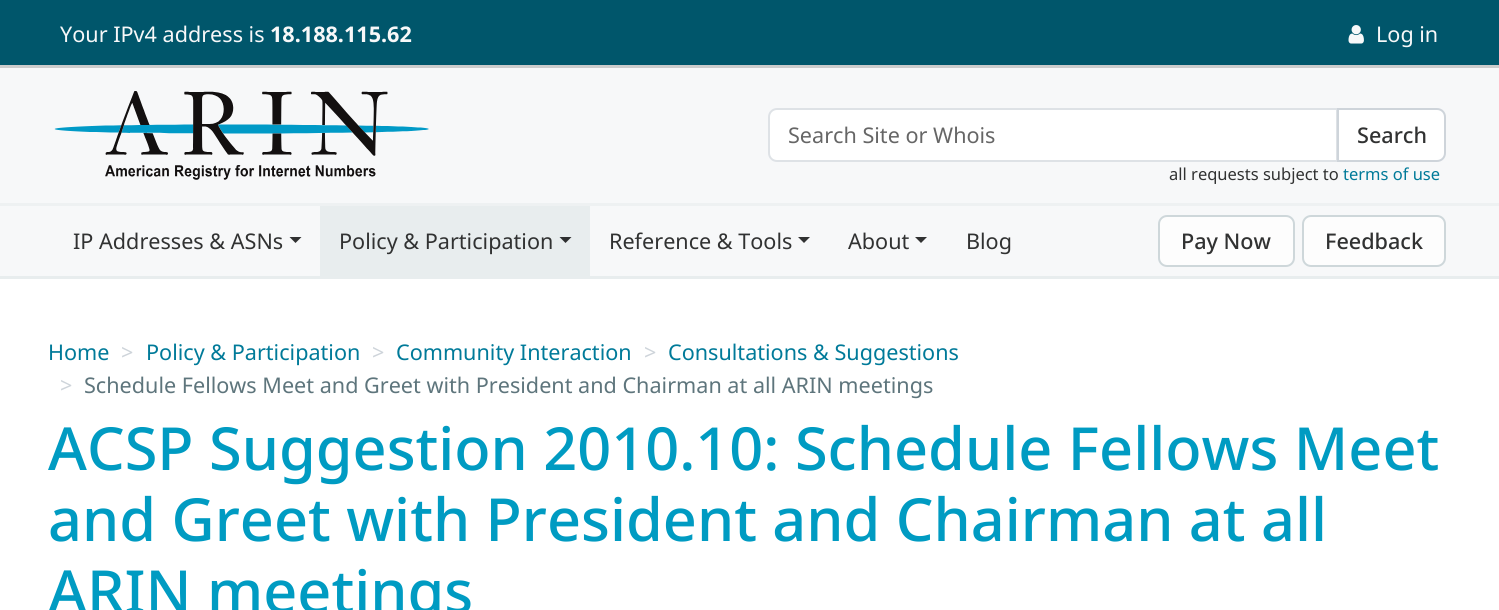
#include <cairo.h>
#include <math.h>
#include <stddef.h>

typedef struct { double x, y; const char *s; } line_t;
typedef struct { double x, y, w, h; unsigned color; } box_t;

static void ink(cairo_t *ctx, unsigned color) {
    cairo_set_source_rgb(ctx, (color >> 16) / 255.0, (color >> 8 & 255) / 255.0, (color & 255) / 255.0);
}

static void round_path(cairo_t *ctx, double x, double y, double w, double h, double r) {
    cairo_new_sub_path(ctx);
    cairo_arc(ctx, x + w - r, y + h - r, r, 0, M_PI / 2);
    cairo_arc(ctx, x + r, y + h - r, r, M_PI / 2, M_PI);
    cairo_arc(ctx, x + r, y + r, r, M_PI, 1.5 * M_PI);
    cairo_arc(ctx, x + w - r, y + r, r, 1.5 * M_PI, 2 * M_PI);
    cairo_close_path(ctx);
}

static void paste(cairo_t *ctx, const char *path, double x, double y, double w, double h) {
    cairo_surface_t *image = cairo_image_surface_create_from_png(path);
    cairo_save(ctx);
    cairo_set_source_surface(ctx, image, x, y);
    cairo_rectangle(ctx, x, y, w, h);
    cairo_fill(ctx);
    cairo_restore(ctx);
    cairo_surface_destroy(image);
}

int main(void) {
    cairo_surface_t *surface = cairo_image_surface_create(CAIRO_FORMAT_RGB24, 1499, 610);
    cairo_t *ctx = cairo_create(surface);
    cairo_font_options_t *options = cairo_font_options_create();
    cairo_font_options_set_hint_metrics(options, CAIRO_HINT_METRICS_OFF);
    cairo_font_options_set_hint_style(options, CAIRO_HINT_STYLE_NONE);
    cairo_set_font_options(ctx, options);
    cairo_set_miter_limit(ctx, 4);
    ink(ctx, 0xFFFFFF);
    cairo_paint(ctx);
    ink(ctx, 0x00566B);
    cairo_rectangle(ctx, 0, 0, 1499, 65);
    cairo_fill(ctx);
    ink(ctx, 0xCCCCCC);
    cairo_rectangle(ctx, 0, 65, 1499, 3);
    cairo_fill(ctx);
    cairo_select_font_face(ctx, "Noto Sans", CAIRO_FONT_SLANT_NORMAL, CAIRO_FONT_WEIGHT_NORMAL);
    cairo_set_font_size(ctx, 21.6);
    ink(ctx, 0xF7F8F9);
    cairo_move_to(ctx, 60, 42);
    cairo_show_text(ctx, "Your IPv4 address is");
    cairo_select_font_face(ctx, "Noto Sans", CAIRO_FONT_SLANT_NORMAL, CAIRO_FONT_WEIGHT_BOLD);
    cairo_move_to(ctx, 270, 42);
    cairo_show_text(ctx, "18.188.115.62");
    paste(ctx, "media/1.png", 1348, 25, 16, 19);
    cairo_select_font_face(ctx, "Noto Sans", CAIRO_FONT_SLANT_NORMAL, CAIRO_FONT_WEIGHT_NORMAL);
    cairo_move_to(ctx, 1376, 42);
    cairo_show_text(ctx, "Log in");
    cairo_rectangle(ctx, 0, 68, 1499, 135);
    cairo_fill(ctx);
    paste(ctx, "media/2.png", 54, 91, 375, 89);
    ink(ctx, 0xFFFFFF);
    cairo_new_path(ctx);
    cairo_move_to(ctx, 777, 109);
    cairo_line_to(ctx, 1337, 109);
    cairo_line_to(ctx, 1337, 161);
    cairo_line_to(ctx, 777, 161);
    cairo_curve_to(ctx, 772.5, 161, 769, 157.5, 769, 153);
    cairo_line_to(ctx, 769, 117);
    cairo_curve_to(ctx, 769, 112.5, 772.5, 109, 777, 109);
    cairo_close_path(ctx);
    cairo_fill_preserve(ctx);
    ink(ctx, 0xDEE2E6);
    cairo_stroke(ctx);
    ink(ctx, 0x666666);
    cairo_move_to(ctx, 788, 143);
    cairo_show_text(ctx, "Search Site or Whois");
    ink(ctx, 0xFFFFFF);
    cairo_new_path(ctx);
    cairo_move_to(ctx, 1338, 109);
    cairo_line_to(ctx, 1437, 109);
    cairo_curve_to(ctx, 1441.5, 109, 1445, 112.5, 1445, 117);
    cairo_line_to(ctx, 1445, 153);
    cairo_curve_to(ctx, 1445, 157.5, 1441.5, 161, 1437, 161);
    cairo_line_to(ctx, 1338, 161);
    cairo_close_path(ctx);
    cairo_fill_preserve(ctx);
    ink(ctx, 0xCED4DA);
    cairo_stroke(ctx);
    cairo_select_font_face(ctx, "Noto Sans Medium", CAIRO_FONT_SLANT_NORMAL, CAIRO_FONT_WEIGHT_NORMAL);
    ink(ctx, 0x313232);
    cairo_move_to(ctx, 1357, 143);
    cairo_show_text(ctx, "Search");
    cairo_select_font_face(ctx, "Noto Sans", CAIRO_FONT_SLANT_NORMAL, CAIRO_FONT_WEIGHT_NORMAL);
    cairo_set_font_size(ctx, 16.5);
    cairo_move_to(ctx, 1169, 180);
    cairo_show_text(ctx, "all requests subject to");
    ink(ctx, 0x007A99);
    cairo_move_to(ctx, 1343, 180);
    cairo_show_text(ctx, "terms of use");
    {
        static const box_t items[] = {
            {0, 206, 1499, 70, 0xF7F8F9},
            {0, 203, 1499, 3, 0xEEF1F2},
            {0, 276, 1499, 3, 0xE8EDEE},
        };
        for (size_t i = 0; i < sizeof items / sizeof *items; i++) {
            ink(ctx, items[i].color);
            cairo_rectangle(ctx, items[i].x, items[i].y, items[i].w, items[i].h);
            cairo_fill(ctx);
        }
    }
    cairo_set_font_size(ctx, 21.6);
    ink(ctx, 0x313232);
    cairo_move_to(ctx, 73, 249);
    cairo_show_text(ctx, "IP Addresses & ASNs");
    cairo_new_path(ctx);
    cairo_move_to(ctx, 289.5, 237);
    cairo_line_to(ctx, 301.5, 237);
    cairo_line_to(ctx, 295.5, 243);
    cairo_close_path(ctx);
    cairo_fill(ctx);
    ink(ctx, 0xE8EDEE);
    cairo_rectangle(ctx, 320, 206, 270, 70);
    cairo_fill(ctx);
    ink(ctx, 0x313232);
    cairo_move_to(ctx, 339, 249);
    cairo_show_text(ctx, "Policy & Participation");
    ink(ctx, 0x2E2F30);
    cairo_new_path(ctx);
    cairo_move_to(ctx, 559.5, 237);
    cairo_line_to(ctx, 571.5, 237);
    cairo_line_to(ctx, 565.5, 243);
    cairo_close_path(ctx);
    cairo_fill(ctx);
    ink(ctx, 0x313232);
    cairo_move_to(ctx, 609, 249);
    cairo_show_text(ctx, "Reference & Tools");
    cairo_new_path(ctx);
    cairo_move_to(ctx, 798, 237);
    cairo_line_to(ctx, 810, 237);
    cairo_line_to(ctx, 804, 243);
    cairo_close_path(ctx);
    cairo_fill(ctx);
    cairo_move_to(ctx, 848, 249);
    cairo_show_text(ctx, "About");
    cairo_new_path(ctx);
    cairo_move_to(ctx, 915, 237);
    cairo_line_to(ctx, 927, 237);
    cairo_line_to(ctx, 921, 243);
    cairo_close_path(ctx);
    cairo_fill(ctx);
    cairo_move_to(ctx, 966, 249);
    cairo_show_text(ctx, "Blog");
    ink(ctx, 0xFDFDFD);
    round_path(ctx, 1159, 216, 135, 50, 8);
    cairo_fill_preserve(ctx);
    ink(ctx, 0xCED7DA);
    cairo_stroke(ctx);
    cairo_select_font_face(ctx, "Noto Sans Medium", CAIRO_FONT_SLANT_NORMAL, CAIRO_FONT_WEIGHT_NORMAL);
    ink(ctx, 0x313232);
    cairo_move_to(ctx, 1181, 249);
    cairo_show_text(ctx, "Pay Now");
    ink(ctx, 0xFDFDFD);
    round_path(ctx, 1303, 216, 142, 50, 8);
    cairo_fill_preserve(ctx);
    ink(ctx, 0xCED7DA);
    cairo_stroke(ctx);
    ink(ctx, 0x313232);
    cairo_move_to(ctx, 1325, 249);
    cairo_show_text(ctx, "Feedback");
    cairo_select_font_face(ctx, "Noto Sans", CAIRO_FONT_SLANT_NORMAL, CAIRO_FONT_WEIGHT_NORMAL);
    ink(ctx, 0x007A99);
    cairo_move_to(ctx, 48, 360);
    cairo_show_text(ctx, "Home");
    ink(ctx, 0xCED4DA);
    cairo_move_to(ctx, 121, 360);
    cairo_show_text(ctx, ">");
    ink(ctx, 0x007A99);
    cairo_move_to(ctx, 146, 360);
    cairo_show_text(ctx, "Policy & Participation");
    ink(ctx, 0xCED4DA);
    cairo_move_to(ctx, 372, 360);
    cairo_show_text(ctx, ">");
    ink(ctx, 0x007A99);
    cairo_move_to(ctx, 396, 360);
    cairo_show_text(ctx, "Community Interaction");
    ink(ctx, 0xCED4DA);
    cairo_move_to(ctx, 644, 360);
    cairo_show_text(ctx, ">");
    ink(ctx, 0x007A99);
    cairo_move_to(ctx, 668, 360);
    cairo_show_text(ctx, "Consultations & Suggestions");
    ink(ctx, 0xCED4DA);
    cairo_move_to(ctx, 60, 393);
    cairo_show_text(ctx, ">");
    ink(ctx, 0x5E757C);
    cairo_move_to(ctx, 84, 393);
    cairo_show_text(ctx, "Schedule Fellows Meet and Greet with President and Chairman at all ARIN meetings");
    cairo_select_font_face(ctx, "Noto Sans Medium", CAIRO_FONT_SLANT_NORMAL, CAIRO_FONT_WEIGHT_NORMAL);
    cairo_set_font_size(ctx, 59.4);
    ink(ctx, 0x009BC2);
    {
        static const line_t items[] = {
            {48, 470, "ACSP Suggestion 2010.10: Schedule Fellows Meet"},
            {48, 541, "and Greet with President and Chairman at all"},
            {48, 613, "ARIN meetings"},
        };
        for (size_t i = 0; i < sizeof items / sizeof *items; i++) {
            cairo_move_to(ctx, items[i].x, items[i].y);
            cairo_show_text(ctx, items[i].s);
        }
    }
    cairo_surface_write_to_png(surface, "image.png");
    cairo_font_options_destroy(options);
    cairo_destroy(ctx);
    cairo_surface_destroy(surface);
    return 0;
}
